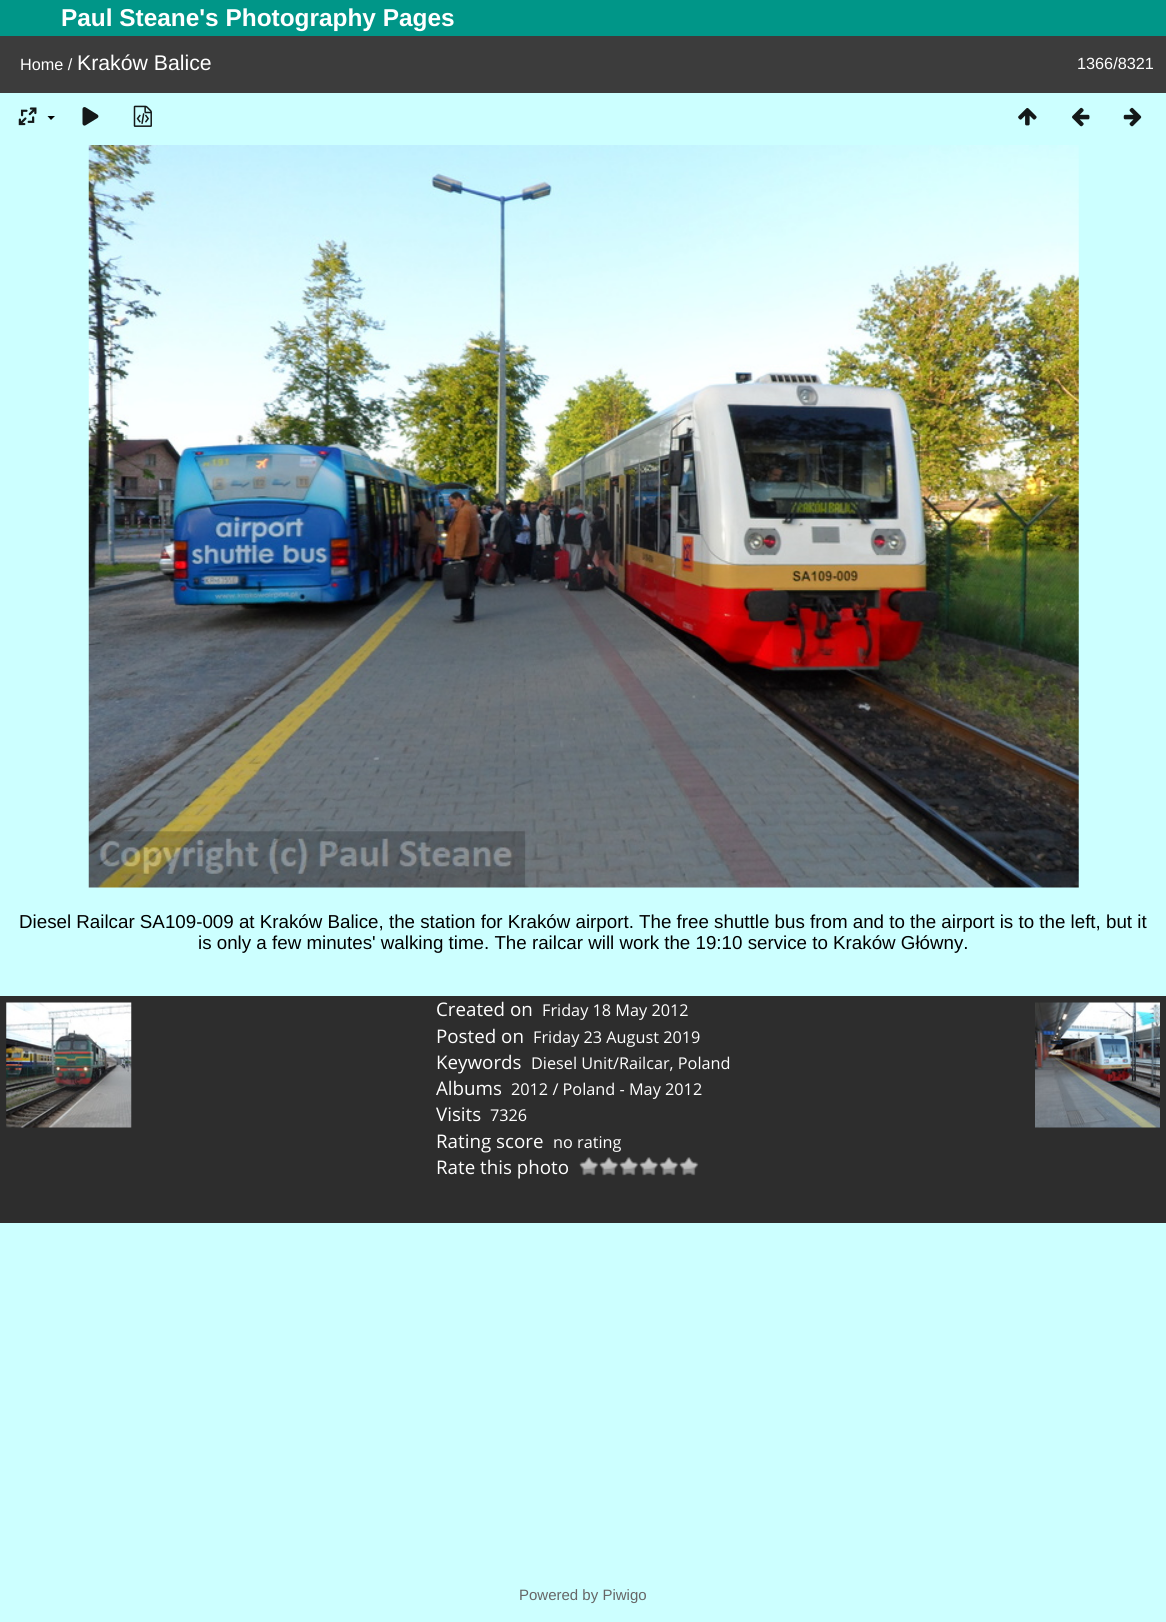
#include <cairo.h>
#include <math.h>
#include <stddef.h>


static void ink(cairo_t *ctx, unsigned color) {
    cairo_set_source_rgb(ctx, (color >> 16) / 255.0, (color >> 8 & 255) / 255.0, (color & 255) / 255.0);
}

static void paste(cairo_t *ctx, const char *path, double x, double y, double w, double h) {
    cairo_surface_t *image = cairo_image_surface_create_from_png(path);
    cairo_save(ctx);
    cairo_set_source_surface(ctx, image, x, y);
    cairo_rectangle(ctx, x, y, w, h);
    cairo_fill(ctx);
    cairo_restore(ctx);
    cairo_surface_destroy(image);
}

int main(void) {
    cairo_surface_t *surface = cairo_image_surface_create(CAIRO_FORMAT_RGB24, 1166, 1622);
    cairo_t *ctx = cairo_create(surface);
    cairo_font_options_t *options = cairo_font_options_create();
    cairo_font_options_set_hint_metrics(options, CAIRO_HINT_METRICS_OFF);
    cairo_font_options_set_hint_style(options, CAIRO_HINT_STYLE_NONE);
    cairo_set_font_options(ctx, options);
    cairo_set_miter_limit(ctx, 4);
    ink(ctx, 0xCCFFFF);
    cairo_paint(ctx);
    ink(ctx, 0x009688);
    cairo_rectangle(ctx, 0, 0, 1166, 36);
    cairo_fill(ctx);
    cairo_select_font_face(ctx, "Liberation Sans", CAIRO_FONT_SLANT_NORMAL, CAIRO_FONT_WEIGHT_BOLD);
    cairo_set_font_size(ctx, 24.4);
    ink(ctx, 0xFFFFFF);
    cairo_move_to(ctx, 61, 26);
    cairo_show_text(ctx, "Paul Steane's Photography Pages");
    ink(ctx, 0x3C3C3C);
    cairo_rectangle(ctx, 0, 36, 1166, 57);
    cairo_fill(ctx);
    cairo_select_font_face(ctx, "Liberation Sans", CAIRO_FONT_SLANT_NORMAL, CAIRO_FONT_WEIGHT_NORMAL);
    cairo_set_font_size(ctx, 16.25);
    ink(ctx, 0xFFFFFF);
    cairo_move_to(ctx, 20, 70);
    cairo_show_text(ctx, "Home /");
    cairo_set_font_size(ctx, 21.25);
    cairo_move_to(ctx, 77, 70);
    cairo_show_text(ctx, "Kraków Balice");
    cairo_set_font_size(ctx, 16.25);
    cairo_move_to(ctx, 1077, 69);
    cairo_show_text(ctx, "1366/8321");
    paste(ctx, "media/1.png", 18, 107, 19, 19);
    ink(ctx, 0x000000);
    cairo_new_path(ctx);
    cairo_move_to(ctx, 47.5, 116);
    cairo_line_to(ctx, 55, 116);
    cairo_line_to(ctx, 51, 120);
    cairo_close_path(ctx);
    cairo_fill(ctx);
    paste(ctx, "media/2.png", 82, 107, 17, 19);
    paste(ctx, "media/3.png", 133, 105, 19, 22);
    paste(ctx, "media/4.png", 1018, 108, 19, 18);
    paste(ctx, "media/5.png", 1072, 107, 18, 20);
    paste(ctx, "media/6.png", 1123, 107, 19, 20);
    paste(ctx, "media/7.png", 88, 145, 991, 743);
    cairo_set_font_size(ctx, 18.75);
    cairo_move_to(ctx, 19, 928);
    cairo_show_text(ctx, "Diesel Railcar SA109-009 at Kraków Balice, the station for Kraków airport. The free shuttle bus from and to the airport is to the left, but it");
    cairo_move_to(ctx, 198, 949);
    cairo_show_text(ctx, "is only a few minutes' walking time. The railcar will work the 19:10 service to Kraków Główny.");
    ink(ctx, 0x2D2D2D);
    cairo_rectangle(ctx, 0, 996, 1166, 227);
    cairo_fill(ctx);
    cairo_select_font_face(ctx, "Open Sans", CAIRO_FONT_SLANT_NORMAL, CAIRO_FONT_WEIGHT_NORMAL);
    ink(ctx, 0xFFFFFF);
    cairo_move_to(ctx, 436, 1016);
    cairo_show_text(ctx, "Created on");
    cairo_set_font_size(ctx, 16.25);
    cairo_move_to(ctx, 542, 1016);
    cairo_show_text(ctx, "Friday 18 May 2012");
    cairo_set_font_size(ctx, 18.75);
    cairo_move_to(ctx, 436, 1043);
    cairo_show_text(ctx, "Posted on");
    cairo_set_font_size(ctx, 16.25);
    cairo_move_to(ctx, 533, 1043);
    cairo_show_text(ctx, "Friday 23 August 2019");
    cairo_set_font_size(ctx, 18.75);
    cairo_move_to(ctx, 436, 1069);
    cairo_show_text(ctx, "Keywords");
    cairo_set_font_size(ctx, 16.25);
    cairo_move_to(ctx, 531, 1069);
    cairo_show_text(ctx, "Diesel Unit/Railcar, Poland");
    cairo_set_font_size(ctx, 18.75);
    cairo_move_to(ctx, 436, 1095);
    cairo_show_text(ctx, "Albums");
    cairo_set_font_size(ctx, 16.25);
    cairo_move_to(ctx, 511, 1095);
    cairo_show_text(ctx, "2012 / Poland - May 2012");
    cairo_set_font_size(ctx, 18.75);
    cairo_move_to(ctx, 436, 1121);
    cairo_show_text(ctx, "Visits");
    cairo_set_font_size(ctx, 16.25);
    cairo_move_to(ctx, 490, 1121);
    cairo_show_text(ctx, "7326");
    cairo_set_font_size(ctx, 18.75);
    cairo_move_to(ctx, 436, 1148);
    cairo_show_text(ctx, "Rating score");
    cairo_set_font_size(ctx, 16.25);
    cairo_move_to(ctx, 553, 1148);
    cairo_show_text(ctx, "no rating");
    cairo_set_font_size(ctx, 18.75);
    cairo_move_to(ctx, 436, 1174);
    cairo_show_text(ctx, "Rate this photo");
    paste(ctx, "media/8.png", 579, 1157, 20, 19);
    paste(ctx, "media/9.png", 599, 1157, 20, 19);
    paste(ctx, "media/9.png", 619, 1157, 20, 19);
    paste(ctx, "media/9.png", 639, 1157, 20, 19);
    paste(ctx, "media/9.png", 659, 1157, 20, 19);
    paste(ctx, "media/8.png", 679, 1157, 20, 19);
    paste(ctx, "media/10.png", 6, 1002, 126, 126);
    paste(ctx, "media/11.png", 1035, 1002, 125, 126);
    cairo_select_font_face(ctx, "Liberation Sans", CAIRO_FONT_SLANT_NORMAL, CAIRO_FONT_WEIGHT_NORMAL);
    cairo_set_font_size(ctx, 15);
    ink(ctx, 0x666666);
    cairo_move_to(ctx, 519, 1600);
    cairo_show_text(ctx, "Powered by Piwigo");
    cairo_surface_write_to_png(surface, "image.png");
    cairo_font_options_destroy(options);
    cairo_destroy(ctx);
    cairo_surface_destroy(surface);
    return 0;
}
